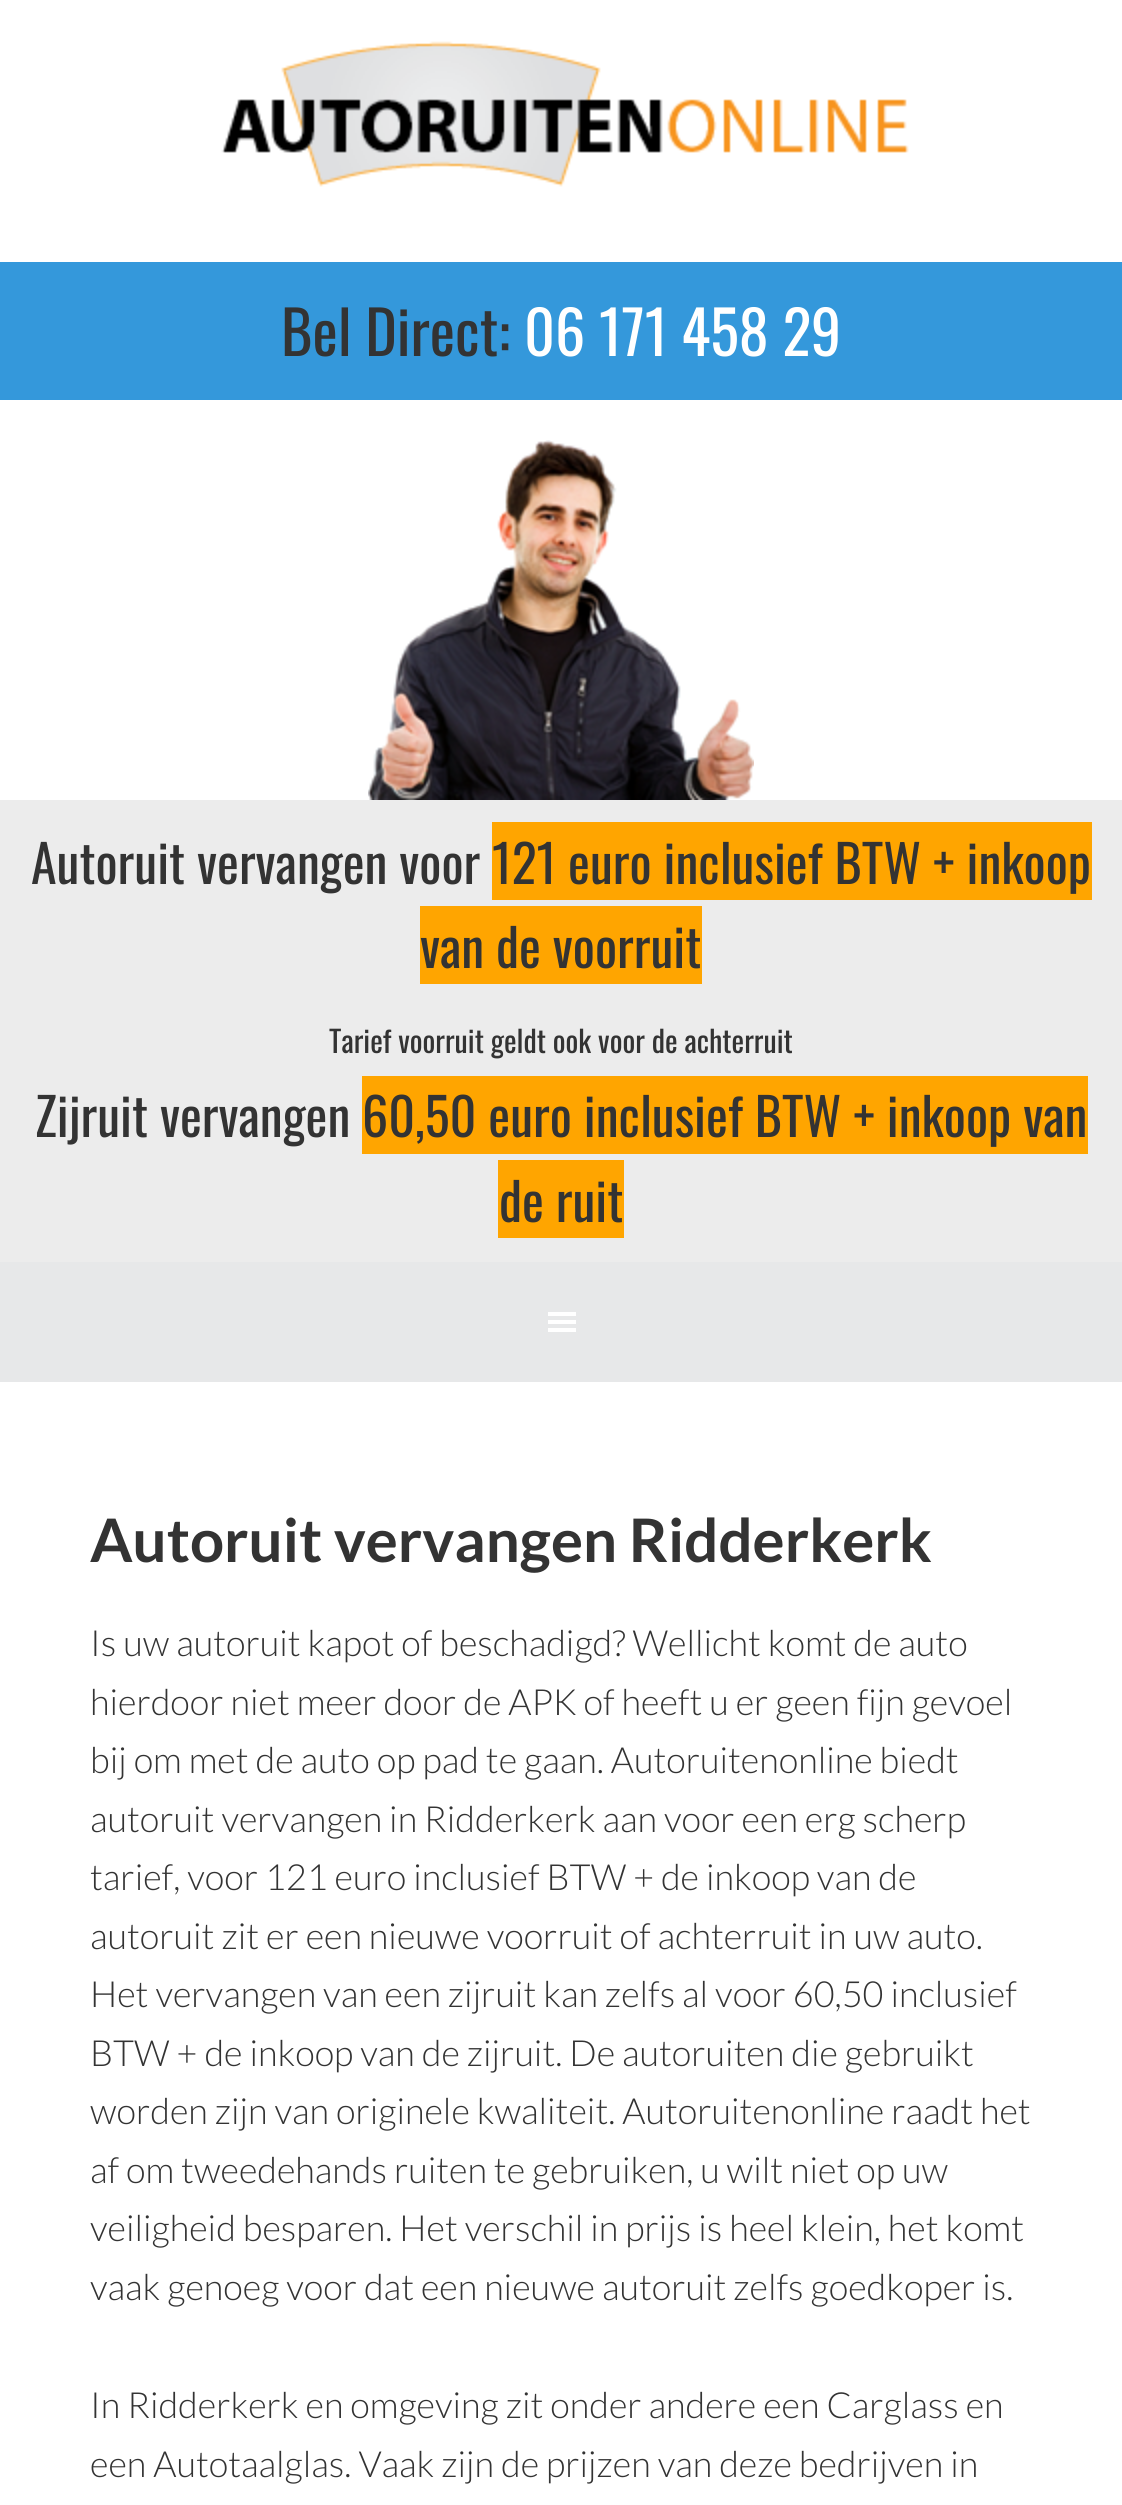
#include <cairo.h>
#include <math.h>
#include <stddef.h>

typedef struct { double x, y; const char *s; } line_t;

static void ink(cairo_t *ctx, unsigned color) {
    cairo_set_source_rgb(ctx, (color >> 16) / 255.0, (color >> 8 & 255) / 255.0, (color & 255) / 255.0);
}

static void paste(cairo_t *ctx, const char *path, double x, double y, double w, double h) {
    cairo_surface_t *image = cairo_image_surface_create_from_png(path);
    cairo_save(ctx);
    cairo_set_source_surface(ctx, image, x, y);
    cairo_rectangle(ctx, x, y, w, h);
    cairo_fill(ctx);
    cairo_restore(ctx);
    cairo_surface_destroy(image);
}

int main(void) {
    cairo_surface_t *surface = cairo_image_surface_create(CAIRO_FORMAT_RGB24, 1122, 2505);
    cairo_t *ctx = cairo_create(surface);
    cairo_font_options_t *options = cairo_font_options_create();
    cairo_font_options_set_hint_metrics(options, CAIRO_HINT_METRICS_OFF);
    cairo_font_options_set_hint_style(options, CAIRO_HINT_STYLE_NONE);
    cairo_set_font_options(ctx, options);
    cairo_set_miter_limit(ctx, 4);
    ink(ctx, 0xFFFFFF);
    cairo_paint(ctx);
    paste(ctx, "media/1.png", 221, 41, 688, 146);
    ink(ctx, 0x3498DB);
    cairo_rectangle(ctx, 0, 262, 1122, 138);
    cairo_fill(ctx);
    cairo_select_font_face(ctx, "Oswald", CAIRO_FONT_SLANT_NORMAL, CAIRO_FONT_WEIGHT_NORMAL);
    cairo_set_font_size(ctx, 60);
    ink(ctx, 0x333333);
    cairo_move_to(ctx, 281, 356);
    cairo_show_text(ctx, "Bel Direct:");
    ink(ctx, 0xFFFFFF);
    cairo_move_to(ctx, 524, 356);
    cairo_show_text(ctx, "06 171 458 29");
    paste(ctx, "media/2.png", 368, 440, 386, 360);
    ink(ctx, 0xECECEC);
    cairo_rectangle(ctx, 0, 800, 1122, 462);
    cairo_fill(ctx);
    cairo_set_font_size(ctx, 52);
    ink(ctx, 0x333333);
    cairo_move_to(ctx, 31, 884);
    cairo_show_text(ctx, "Autoruit vervangen voor");
    ink(ctx, 0xFFA500);
    cairo_rectangle(ctx, 492, 822, 600, 78);
    cairo_fill(ctx);
    ink(ctx, 0x333333);
    cairo_move_to(ctx, 492, 884);
    cairo_show_text(ctx, "121 euro inclusief BTW + inkoop");
    ink(ctx, 0xFFA500);
    cairo_rectangle(ctx, 420, 906, 282, 78);
    cairo_fill(ctx);
    ink(ctx, 0x333333);
    cairo_move_to(ctx, 420, 968);
    cairo_show_text(ctx, "van de voorruit");
    cairo_set_font_size(ctx, 30);
    cairo_move_to(ctx, 329, 1053);
    cairo_show_text(ctx, "Tarief voorruit geldt ook voor de achterruit");
    cairo_set_font_size(ctx, 52);
    cairo_move_to(ctx, 35, 1137);
    cairo_show_text(ctx, "Zijruit vervangen");
    ink(ctx, 0xFFA500);
    cairo_rectangle(ctx, 362, 1076, 726, 78);
    cairo_fill(ctx);
    ink(ctx, 0x333333);
    cairo_move_to(ctx, 362, 1137);
    cairo_show_text(ctx, "60,50 euro inclusief BTW + inkoop van");
    ink(ctx, 0xFFA500);
    cairo_rectangle(ctx, 498, 1160, 126, 78);
    cairo_fill(ctx);
    ink(ctx, 0x333333);
    cairo_move_to(ctx, 499, 1222);
    cairo_show_text(ctx, "de ruit");
    ink(ctx, 0xE7E8E9);
    cairo_rectangle(ctx, 0, 1262, 1122, 120);
    cairo_fill(ctx);
    paste(ctx, "media/3.png", 548, 1312, 28, 20);
    cairo_select_font_face(ctx, "Lato", CAIRO_FONT_SLANT_NORMAL, CAIRO_FONT_WEIGHT_BOLD);
    cairo_set_font_size(ctx, 60);
    ink(ctx, 0x333333);
    cairo_move_to(ctx, 90, 1562);
    cairo_show_text(ctx, "Autoruit vervangen Ridderkerk");
    cairo_select_font_face(ctx, "Lato Light", CAIRO_FONT_SLANT_NORMAL, CAIRO_FONT_WEIGHT_NORMAL);
    cairo_set_font_size(ctx, 36);
    {
        static const line_t items[] = {
            {90, 1656, "Is uw autoruit kapot of beschadigd? Wellicht komt de auto"},
            {90, 1715, "hierdoor niet meer door de APK of heeft u er geen fijn gevoel"},
            {90, 1773, "bij om met de auto op pad te gaan. Autoruitenonline biedt"},
            {90, 1832, "autoruit vervangen in Ridderkerk aan voor een erg scherp"},
            {90, 1890, "tarief, voor 121 euro inclusief BTW + de inkoop van de"},
            {90, 1949, "autoruit zit er een nieuwe voorruit of achterruit in uw auto."},
            {90, 2007, "Het vervangen van een zijruit kan zelfs al voor 60,50 inclusief"},
            {90, 2066, "BTW + de inkoop van de zijruit. De autoruiten die gebruikt"},
            {90, 2124, "worden zijn van originele kwaliteit. Autoruitenonline raadt het"},
            {90, 2183, "af om tweedehands ruiten te gebruiken, u wilt niet op uw"},
            {90, 2241, "veiligheid besparen. Het verschil in prijs is heel klein, het komt"},
            {90, 2300, "vaak genoeg voor dat een nieuwe autoruit zelfs goedkoper is."},
            {90, 2418, "In Ridderkerk en omgeving zit onder andere een Carglass en"},
            {90, 2477, "een Autotaalglas. Vaak zijn de prijzen van deze bedrijven in"},
        };
        for (size_t i = 0; i < sizeof items / sizeof *items; i++) {
            cairo_move_to(ctx, items[i].x, items[i].y);
            cairo_show_text(ctx, items[i].s);
        }
    }
    cairo_surface_write_to_png(surface, "image.png");
    cairo_font_options_destroy(options);
    cairo_destroy(ctx);
    cairo_surface_destroy(surface);
    return 0;
}
